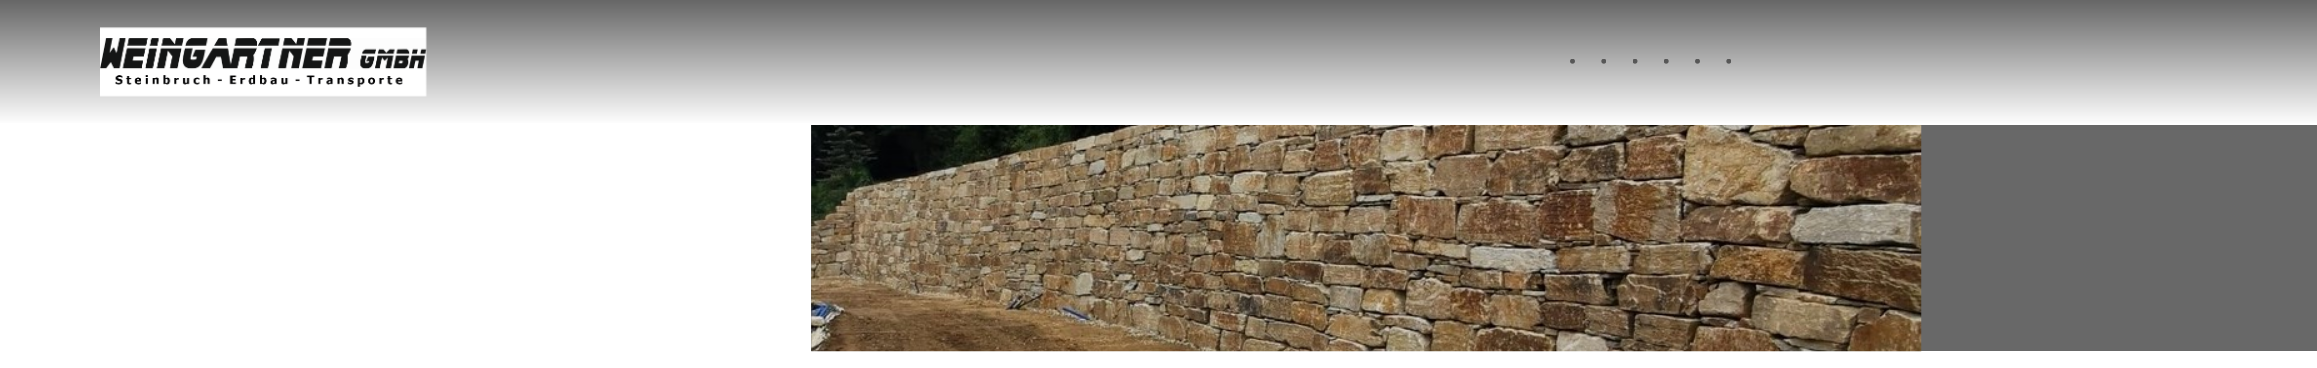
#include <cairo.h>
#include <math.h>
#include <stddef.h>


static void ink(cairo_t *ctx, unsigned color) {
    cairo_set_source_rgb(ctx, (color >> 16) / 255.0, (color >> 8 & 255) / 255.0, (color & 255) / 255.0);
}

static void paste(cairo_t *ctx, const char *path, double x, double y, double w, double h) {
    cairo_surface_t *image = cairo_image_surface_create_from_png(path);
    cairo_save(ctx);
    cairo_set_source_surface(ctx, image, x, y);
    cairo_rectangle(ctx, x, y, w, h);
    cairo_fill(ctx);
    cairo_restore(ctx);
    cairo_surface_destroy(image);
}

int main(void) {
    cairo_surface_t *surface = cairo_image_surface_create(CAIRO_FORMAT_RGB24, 2317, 368);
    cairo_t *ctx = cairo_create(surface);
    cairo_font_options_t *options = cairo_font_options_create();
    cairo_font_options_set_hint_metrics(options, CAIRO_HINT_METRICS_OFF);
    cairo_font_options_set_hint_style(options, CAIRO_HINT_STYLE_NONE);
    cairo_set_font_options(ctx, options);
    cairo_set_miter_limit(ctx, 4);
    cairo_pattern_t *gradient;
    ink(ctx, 0xFFFFFF);
    cairo_paint(ctx);
    gradient = cairo_pattern_create_linear(1159, 0, 1159, 125);
    cairo_pattern_add_color_stop_rgba(gradient, 0, 0.4, 0.4, 0.4, 1);
    cairo_pattern_add_color_stop_rgba(gradient, 1, 1, 1, 1, 1);
    cairo_set_source(ctx, gradient);
    cairo_pattern_destroy(gradient);
    cairo_rectangle(ctx, 0, 0, 2317, 123);
    cairo_fill(ctx);
    paste(ctx, "media/1.png", 100, 27, 327, 70);
    cairo_save(ctx);
    cairo_rectangle(ctx, 1570, 59, 5, 5);
    cairo_clip(ctx);
    ink(ctx, 0x575757);
    cairo_arc(ctx, 1572.5, 61.2, 2.5, 0, 2 * M_PI);
    cairo_fill(ctx);
    cairo_restore(ctx);
    cairo_save(ctx);
    cairo_rectangle(ctx, 1601, 59, 5, 5);
    cairo_clip(ctx);
    ink(ctx, 0x575757);
    cairo_arc(ctx, 1603.8, 61.2, 2.5, 0, 2 * M_PI);
    cairo_fill(ctx);
    cairo_restore(ctx);
    cairo_save(ctx);
    cairo_rectangle(ctx, 1633, 59, 5, 5);
    cairo_clip(ctx);
    ink(ctx, 0x575757);
    cairo_arc(ctx, 1635, 61.2, 2.5, 0, 2 * M_PI);
    cairo_fill(ctx);
    cairo_restore(ctx);
    cairo_save(ctx);
    cairo_rectangle(ctx, 1664, 59, 5, 5);
    cairo_clip(ctx);
    ink(ctx, 0x575757);
    cairo_arc(ctx, 1666.2, 61.2, 2.5, 0, 2 * M_PI);
    cairo_fill(ctx);
    cairo_restore(ctx);
    cairo_save(ctx);
    cairo_rectangle(ctx, 1695, 59, 5, 5);
    cairo_clip(ctx);
    ink(ctx, 0x575757);
    cairo_arc(ctx, 1697.5, 61.2, 2.5, 0, 2 * M_PI);
    cairo_fill(ctx);
    cairo_restore(ctx);
    cairo_save(ctx);
    cairo_rectangle(ctx, 1726, 59, 5, 5);
    cairo_clip(ctx);
    ink(ctx, 0x575757);
    cairo_arc(ctx, 1728.8, 61.2, 2.5, 0, 2 * M_PI);
    cairo_fill(ctx);
    cairo_restore(ctx);
    ink(ctx, 0x686868);
    cairo_rectangle(ctx, 811, 125, 1506, 226);
    cairo_fill(ctx);
    paste(ctx, "media/2.png", 811, 125, 1111, 227);
    cairo_surface_write_to_png(surface, "image.png");
    cairo_font_options_destroy(options);
    cairo_destroy(ctx);
    cairo_surface_destroy(surface);
    return 0;
}
